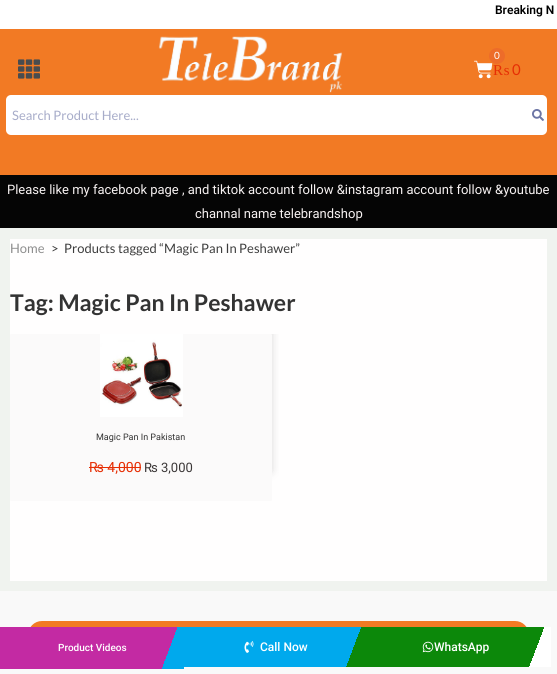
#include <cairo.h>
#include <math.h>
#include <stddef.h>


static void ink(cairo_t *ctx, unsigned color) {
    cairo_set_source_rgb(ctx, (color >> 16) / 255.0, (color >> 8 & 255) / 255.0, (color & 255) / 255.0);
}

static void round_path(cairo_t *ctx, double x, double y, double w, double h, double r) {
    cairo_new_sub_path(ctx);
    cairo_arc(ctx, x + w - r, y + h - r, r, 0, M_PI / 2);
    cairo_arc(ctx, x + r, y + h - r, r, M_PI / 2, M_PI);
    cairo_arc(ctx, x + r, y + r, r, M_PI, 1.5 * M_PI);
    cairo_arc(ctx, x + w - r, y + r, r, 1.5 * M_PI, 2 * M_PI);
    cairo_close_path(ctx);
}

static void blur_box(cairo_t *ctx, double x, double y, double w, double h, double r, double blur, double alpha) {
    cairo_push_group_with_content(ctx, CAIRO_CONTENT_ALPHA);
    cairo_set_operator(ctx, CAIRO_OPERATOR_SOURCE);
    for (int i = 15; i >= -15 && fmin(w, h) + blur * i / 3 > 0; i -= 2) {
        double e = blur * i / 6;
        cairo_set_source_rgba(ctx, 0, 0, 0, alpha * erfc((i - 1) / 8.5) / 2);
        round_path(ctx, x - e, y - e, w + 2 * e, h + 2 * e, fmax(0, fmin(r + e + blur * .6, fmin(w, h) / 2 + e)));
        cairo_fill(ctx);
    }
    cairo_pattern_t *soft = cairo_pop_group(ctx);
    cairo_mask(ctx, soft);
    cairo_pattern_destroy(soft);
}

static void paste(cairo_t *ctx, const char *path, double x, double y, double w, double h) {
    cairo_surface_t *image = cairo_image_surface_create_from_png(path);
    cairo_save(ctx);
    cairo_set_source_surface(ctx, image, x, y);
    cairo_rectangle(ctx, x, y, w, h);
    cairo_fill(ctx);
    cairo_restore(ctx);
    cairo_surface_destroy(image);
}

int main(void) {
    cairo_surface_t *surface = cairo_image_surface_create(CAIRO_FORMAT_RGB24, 557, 674);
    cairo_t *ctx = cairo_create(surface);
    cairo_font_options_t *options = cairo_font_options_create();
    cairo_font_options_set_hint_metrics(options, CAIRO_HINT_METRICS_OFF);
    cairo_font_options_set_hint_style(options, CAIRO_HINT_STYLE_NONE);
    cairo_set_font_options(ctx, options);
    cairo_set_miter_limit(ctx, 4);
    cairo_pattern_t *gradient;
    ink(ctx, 0xF0F3EF);
    cairo_paint(ctx);
    ink(ctx, 0xFFFFFF);
    cairo_rectangle(ctx, 0, 0, 557, 29);
    cairo_fill(ctx);
    cairo_select_font_face(ctx, "Roboto SemiBold", CAIRO_FONT_SLANT_NORMAL, CAIRO_FONT_WEIGHT_NORMAL);
    cairo_set_font_size(ctx, 12);
    ink(ctx, 0x000000);
    cairo_move_to(ctx, 495, 14);
    cairo_show_text(ctx, "Breaking N");
    ink(ctx, 0xF27A24);
    cairo_rectangle(ctx, 0, 29, 557, 146);
    cairo_fill(ctx);
    paste(ctx, "media/1.png", 474, 60, 19, 19);
    ink(ctx, 0xED6C29);
    cairo_arc(ctx, 497, 56, 8, 0, 2 * M_PI);
    cairo_fill(ctx);
    cairo_select_font_face(ctx, "Lato", CAIRO_FONT_SLANT_NORMAL, CAIRO_FONT_WEIGHT_NORMAL);
    cairo_set_font_size(ctx, 10);
    ink(ctx, 0xFFFFFF);
    cairo_move_to(ctx, 494, 59);
    cairo_show_text(ctx, "0");
    cairo_select_font_face(ctx, "Liberation Serif", CAIRO_FONT_SLANT_NORMAL, CAIRO_FONT_WEIGHT_NORMAL);
    cairo_set_font_size(ctx, 15);
    ink(ctx, 0xE62E04);
    cairo_move_to(ctx, 493, 75);
    cairo_show_text(ctx, "₨");
    cairo_select_font_face(ctx, "Lato", CAIRO_FONT_SLANT_NORMAL, CAIRO_FONT_WEIGHT_NORMAL);
    cairo_move_to(ctx, 512, 75);
    cairo_show_text(ctx, "0");
    paste(ctx, "media/2.png", 158, 36, 185, 57);
    ink(ctx, 0xFFFFFF);
    round_path(ctx, 6, 95, 541, 40, 5);
    cairo_fill(ctx);
    cairo_set_font_size(ctx, 13);
    ink(ctx, 0xA7ACC9);
    cairo_move_to(ctx, 12, 120);
    cairo_show_text(ctx, "Search Product Here...");
    paste(ctx, "media/3.png", 532, 109, 12, 12);
    paste(ctx, "media/4.png", 18, 59, 22, 20);
    ink(ctx, 0x050505);
    cairo_rectangle(ctx, 0, 175, 557, 53);
    cairo_fill(ctx);
    cairo_select_font_face(ctx, "Roboto", CAIRO_FONT_SLANT_NORMAL, CAIRO_FONT_WEIGHT_NORMAL);
    ink(ctx, 0xF7F2F2);
    cairo_move_to(ctx, 7, 194);
    cairo_show_text(ctx, "Please like my facebook page , and tiktok account follow &instagram account follow &youtube");
    cairo_move_to(ctx, 195, 218);
    cairo_show_text(ctx, "channal name telebrandshop");
    ink(ctx, 0xFFFEFE);
    cairo_rectangle(ctx, 10, 239, 537, 342);
    cairo_fill(ctx);
    cairo_select_font_face(ctx, "Lato", CAIRO_FONT_SLANT_NORMAL, CAIRO_FONT_WEIGHT_NORMAL);
    ink(ctx, 0x8E8E8E);
    cairo_move_to(ctx, 10, 253);
    cairo_show_text(ctx, "Home");
    ink(ctx, 0x3D3D3D);
    cairo_move_to(ctx, 51, 253);
    cairo_show_text(ctx, ">");
    cairo_move_to(ctx, 64, 253);
    cairo_show_text(ctx, "Products tagged “Magic Pan In Peshawer”");
    cairo_select_font_face(ctx, "Lato", CAIRO_FONT_SLANT_NORMAL, CAIRO_FONT_WEIGHT_BOLD);
    cairo_set_font_size(ctx, 23);
    ink(ctx, 0x333333);
    cairo_move_to(ctx, 10, 311);
    cairo_show_text(ctx, "Tag: Magic Pan In Peshawer");
    cairo_save(ctx);
    cairo_rectangle(ctx, 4, 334, 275, 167);
    cairo_clip(ctx);
    ink(ctx, 0x000000);
    blur_box(ctx, 32, 328, 238, 143, 0, 5, 0.22);
    cairo_restore(ctx);
    ink(ctx, 0xFBFAFA);
    round_path(ctx, 10, 334, 262, 167, 1);
    cairo_fill(ctx);
    paste(ctx, "media/5.png", 100, 334, 83, 83);
    cairo_select_font_face(ctx, "Roboto", CAIRO_FONT_SLANT_NORMAL, CAIRO_FONT_WEIGHT_NORMAL);
    cairo_set_font_size(ctx, 9);
    ink(ctx, 0x333333);
    cairo_move_to(ctx, 96, 440);
    cairo_show_text(ctx, "Magic Pan In Pakistan");
    cairo_set_font_size(ctx, 14);
    ink(ctx, 0xE62E04);
    cairo_move_to(ctx, 89, 472);
    cairo_show_text(ctx, "₨ 4,000");
    cairo_rectangle(ctx, 89, 467, 52, 1);
    cairo_fill(ctx);
    cairo_set_font_size(ctx, 13);
    ink(ctx, 0x3B3737);
    cairo_move_to(ctx, 144, 472);
    cairo_show_text(ctx, "₨ 3,000");
    ink(ctx, 0xF9F9F9);
    cairo_rectangle(ctx, 0, 591, 557, 83);
    cairo_fill(ctx);
    ink(ctx, 0xF27A24);
    round_path(ctx, 28, 621, 501, 33, 14);
    cairo_fill(ctx);
    gradient = cairo_pattern_create_linear(4.8, 615, 179, 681);
    cairo_pattern_add_color_stop_rgba(gradient, 0.89, 0.765, 0.165, 0.639, 1);
    cairo_pattern_add_color_stop_rgba(gradient, 0.89, 0, 0.663, 0.929, 1);
    cairo_set_source(ctx, gradient);
    cairo_pattern_destroy(gradient);
    cairo_rectangle(ctx, 0, 627, 184, 42);
    cairo_fill(ctx);
    cairo_select_font_face(ctx, "Roboto Medium", CAIRO_FONT_SLANT_NORMAL, CAIRO_FONT_WEIGHT_NORMAL);
    cairo_set_font_size(ctx, 10);
    ink(ctx, 0xFFFFFF);
    cairo_move_to(ctx, 58, 651);
    cairo_show_text(ctx, "Product Videos");
    gradient = cairo_pattern_create_linear(189, 614, 363, 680);
    cairo_pattern_add_color_stop_rgba(gradient, 0.89, 0, 0.663, 0.929, 1);
    cairo_pattern_add_color_stop_rgba(gradient, 0.89, 0.047, 0.533, 0.039, 1);
    cairo_set_source(ctx, gradient);
    cairo_pattern_destroy(gradient);
    cairo_rectangle(ctx, 184, 627, 184, 40);
    cairo_fill(ctx);
    paste(ctx, "media/6.png", 244, 641, 10, 12);
    cairo_set_font_size(ctx, 12);
    ink(ctx, 0xFFFFFF);
    cairo_move_to(ctx, 260, 651);
    cairo_show_text(ctx, "Call Now");
    gradient = cairo_pattern_create_linear(373, 614, 546, 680);
    cairo_pattern_add_color_stop_rgba(gradient, 0.89, 0.047, 0.533, 0.039, 1);
    cairo_pattern_add_color_stop_rgba(gradient, 0.89, 1, 1, 1, 1);
    cairo_set_source(ctx, gradient);
    cairo_pattern_destroy(gradient);
    cairo_rectangle(ctx, 368, 627, 183, 40);
    cairo_fill(ctx);
    paste(ctx, "media/7.png", 422, 641, 12, 12);
    ink(ctx, 0xFFFFFF);
    cairo_move_to(ctx, 434, 651);
    cairo_show_text(ctx, "WhatsApp");
    cairo_surface_write_to_png(surface, "image.png");
    cairo_font_options_destroy(options);
    cairo_destroy(ctx);
    cairo_surface_destroy(surface);
    return 0;
}
